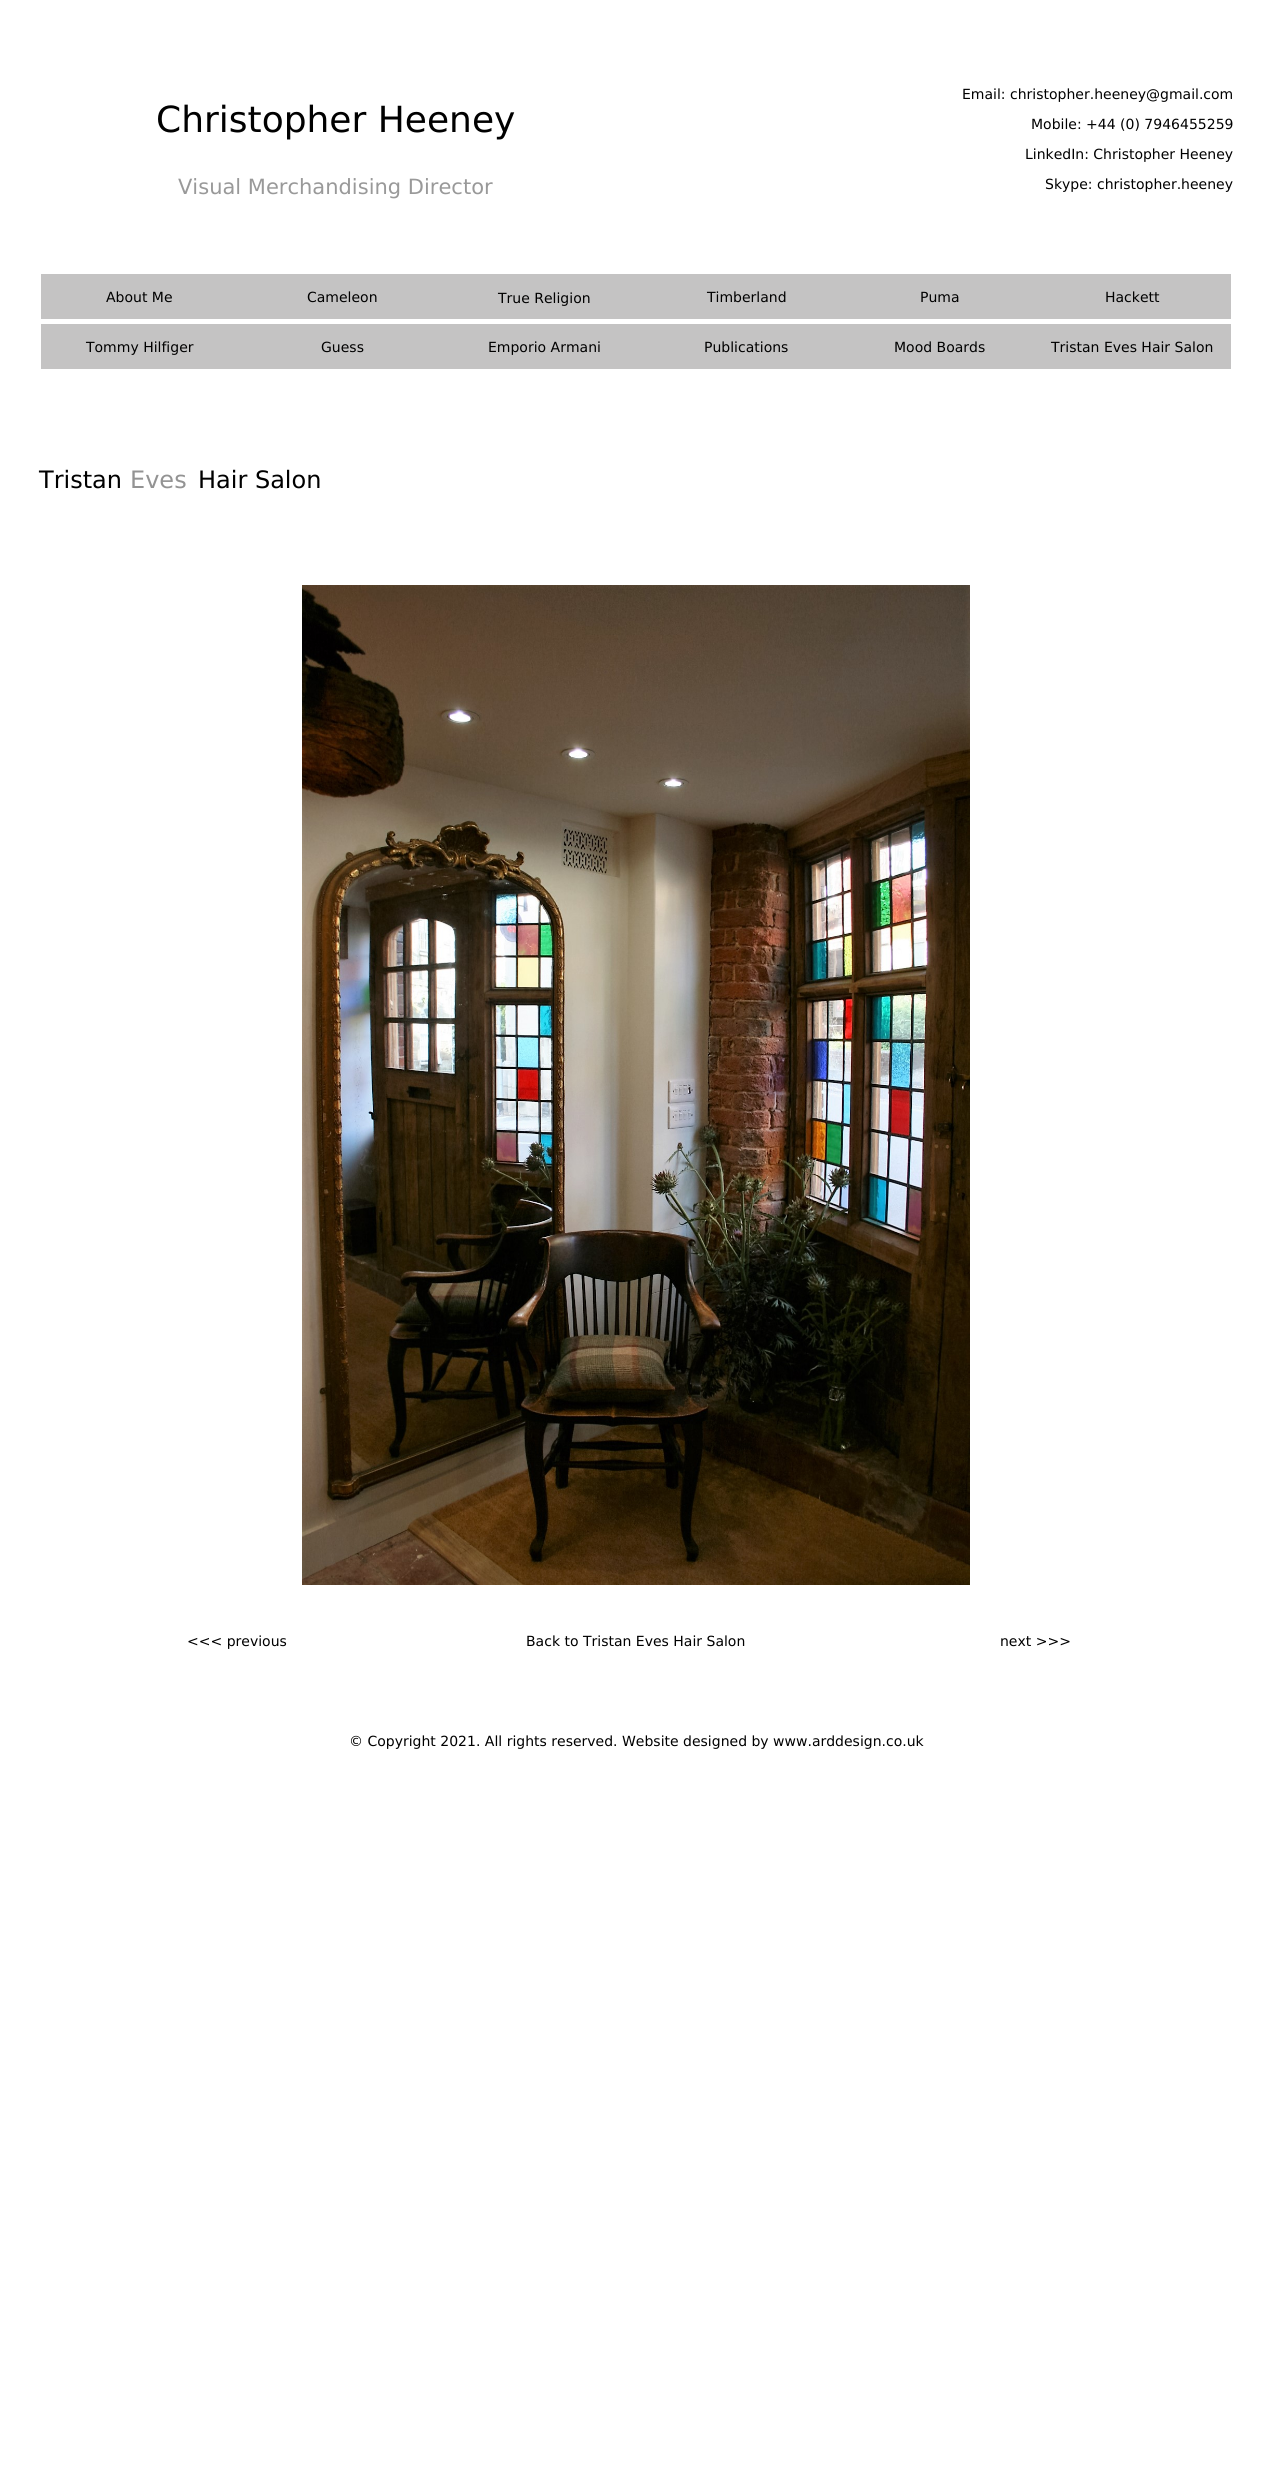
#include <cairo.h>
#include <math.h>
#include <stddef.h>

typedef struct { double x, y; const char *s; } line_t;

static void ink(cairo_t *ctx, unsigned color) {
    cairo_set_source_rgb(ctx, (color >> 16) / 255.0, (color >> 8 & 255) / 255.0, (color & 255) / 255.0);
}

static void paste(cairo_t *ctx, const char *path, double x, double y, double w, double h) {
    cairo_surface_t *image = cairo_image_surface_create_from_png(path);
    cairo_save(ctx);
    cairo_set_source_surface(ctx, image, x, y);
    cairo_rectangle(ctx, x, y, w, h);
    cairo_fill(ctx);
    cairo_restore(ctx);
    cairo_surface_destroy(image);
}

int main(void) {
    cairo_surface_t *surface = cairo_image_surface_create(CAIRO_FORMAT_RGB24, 1272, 2471);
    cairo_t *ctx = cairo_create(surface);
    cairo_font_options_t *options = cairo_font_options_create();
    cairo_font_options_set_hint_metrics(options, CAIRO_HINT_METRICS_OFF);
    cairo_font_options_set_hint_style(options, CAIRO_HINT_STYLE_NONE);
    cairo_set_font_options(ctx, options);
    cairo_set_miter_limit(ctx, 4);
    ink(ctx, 0xFFFFFF);
    cairo_paint(ctx);
    cairo_select_font_face(ctx, "DejaVu Sans", CAIRO_FONT_SLANT_NORMAL, CAIRO_FONT_WEIGHT_NORMAL);
    cairo_set_font_size(ctx, 36);
    ink(ctx, 0x000000);
    cairo_move_to(ctx, 156, 132);
    cairo_show_text(ctx, "Christopher Heeney");
    cairo_set_font_size(ctx, 21);
    ink(ctx, 0x999999);
    cairo_move_to(ctx, 178, 194);
    cairo_show_text(ctx, "Visual Merchandising Director");
    cairo_set_font_size(ctx, 14);
    ink(ctx, 0x000000);
    {
        static const line_t items[] = {
            {962, 99, "Email: christopher.heeney@gmail.com"},
            {1031, 129, "Mobile: +44 (0) 7946455259"},
            {1025, 159, "LinkedIn: Christopher Heeney"},
            {1045, 189, "Skype: christopher.heeney"},
        };
        for (size_t i = 0; i < sizeof items / sizeof *items; i++) {
            cairo_move_to(ctx, items[i].x, items[i].y);
            cairo_show_text(ctx, items[i].s);
        }
    }
    ink(ctx, 0xC4C3C3);
    cairo_rectangle(ctx, 41, 274, 1190, 45);
    cairo_fill(ctx);
    ink(ctx, 0x000000);
    {
        static const line_t items[] = {
            {106, 302, "About Me"},
            {307, 302, "Cameleon"},
            {498, 303, "True Religion"},
            {707, 302, "Timberland"},
            {920, 302, "Puma"},
            {1105, 302, "Hackett"},
        };
        for (size_t i = 0; i < sizeof items / sizeof *items; i++) {
            cairo_move_to(ctx, items[i].x, items[i].y);
            cairo_show_text(ctx, items[i].s);
        }
    }
    ink(ctx, 0xC4C3C3);
    cairo_rectangle(ctx, 41, 324, 1190, 45);
    cairo_fill(ctx);
    ink(ctx, 0x000000);
    {
        static const line_t items[] = {
            {86, 352, "Tommy Hilfiger"},
            {321, 352, "Guess"},
            {488, 352, "Emporio Armani"},
            {704, 352, "Publications"},
            {894, 352, "Mood Boards"},
            {1051, 352, "Tristan Eves Hair Salon"},
        };
        for (size_t i = 0; i < sizeof items / sizeof *items; i++) {
            cairo_move_to(ctx, items[i].x, items[i].y);
            cairo_show_text(ctx, items[i].s);
        }
    }
    cairo_set_font_size(ctx, 24);
    cairo_move_to(ctx, 39, 488);
    cairo_show_text(ctx, "Tristan");
    ink(ctx, 0x939393);
    cairo_move_to(ctx, 130, 488);
    cairo_show_text(ctx, "Eves");
    ink(ctx, 0x000000);
    cairo_move_to(ctx, 198, 488);
    cairo_show_text(ctx, "Hair Salon");
    paste(ctx, "media/1.png", 302, 585, 668, 1000);
    cairo_set_font_size(ctx, 14);
    {
        static const line_t items[] = {
            {187, 1646, "<<< previous"},
            {526, 1646, "Back to Tristan Eves Hair Salon"},
            {1000, 1646, "next >>>"},
            {349, 1746, "© Copyright 2021. All rights reserved. Website designed by www.arddesign.co.uk"},
        };
        for (size_t i = 0; i < sizeof items / sizeof *items; i++) {
            cairo_move_to(ctx, items[i].x, items[i].y);
            cairo_show_text(ctx, items[i].s);
        }
    }
    cairo_surface_write_to_png(surface, "image.png");
    cairo_font_options_destroy(options);
    cairo_destroy(ctx);
    cairo_surface_destroy(surface);
    return 0;
}
